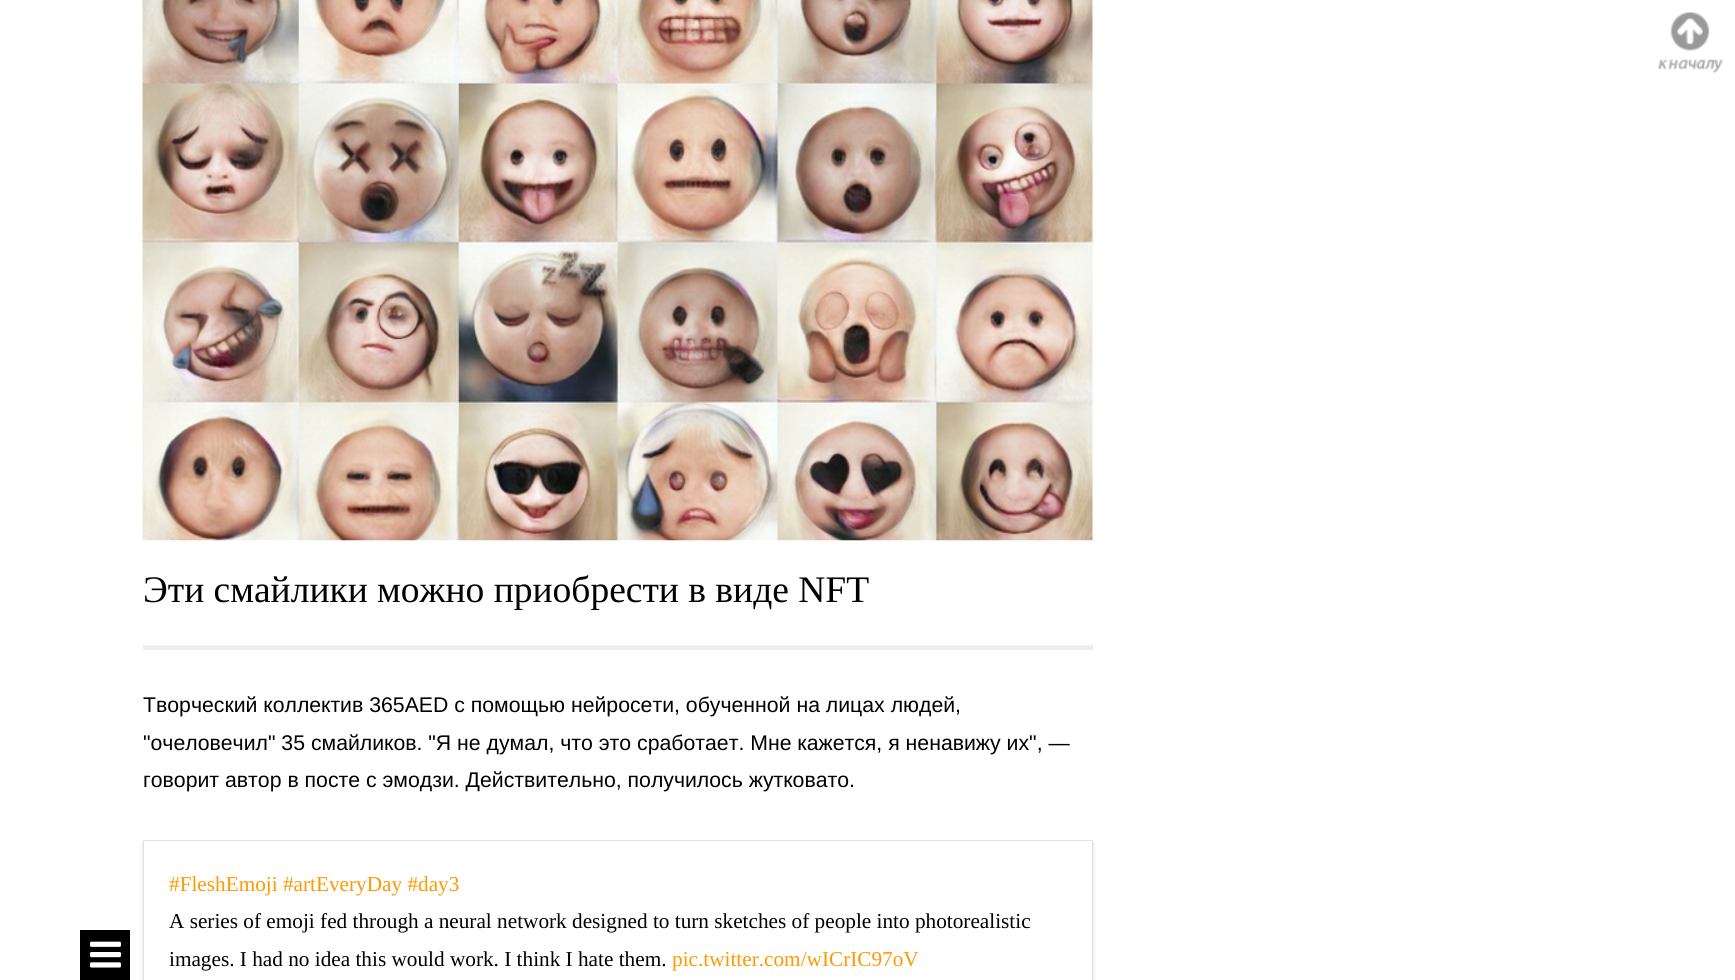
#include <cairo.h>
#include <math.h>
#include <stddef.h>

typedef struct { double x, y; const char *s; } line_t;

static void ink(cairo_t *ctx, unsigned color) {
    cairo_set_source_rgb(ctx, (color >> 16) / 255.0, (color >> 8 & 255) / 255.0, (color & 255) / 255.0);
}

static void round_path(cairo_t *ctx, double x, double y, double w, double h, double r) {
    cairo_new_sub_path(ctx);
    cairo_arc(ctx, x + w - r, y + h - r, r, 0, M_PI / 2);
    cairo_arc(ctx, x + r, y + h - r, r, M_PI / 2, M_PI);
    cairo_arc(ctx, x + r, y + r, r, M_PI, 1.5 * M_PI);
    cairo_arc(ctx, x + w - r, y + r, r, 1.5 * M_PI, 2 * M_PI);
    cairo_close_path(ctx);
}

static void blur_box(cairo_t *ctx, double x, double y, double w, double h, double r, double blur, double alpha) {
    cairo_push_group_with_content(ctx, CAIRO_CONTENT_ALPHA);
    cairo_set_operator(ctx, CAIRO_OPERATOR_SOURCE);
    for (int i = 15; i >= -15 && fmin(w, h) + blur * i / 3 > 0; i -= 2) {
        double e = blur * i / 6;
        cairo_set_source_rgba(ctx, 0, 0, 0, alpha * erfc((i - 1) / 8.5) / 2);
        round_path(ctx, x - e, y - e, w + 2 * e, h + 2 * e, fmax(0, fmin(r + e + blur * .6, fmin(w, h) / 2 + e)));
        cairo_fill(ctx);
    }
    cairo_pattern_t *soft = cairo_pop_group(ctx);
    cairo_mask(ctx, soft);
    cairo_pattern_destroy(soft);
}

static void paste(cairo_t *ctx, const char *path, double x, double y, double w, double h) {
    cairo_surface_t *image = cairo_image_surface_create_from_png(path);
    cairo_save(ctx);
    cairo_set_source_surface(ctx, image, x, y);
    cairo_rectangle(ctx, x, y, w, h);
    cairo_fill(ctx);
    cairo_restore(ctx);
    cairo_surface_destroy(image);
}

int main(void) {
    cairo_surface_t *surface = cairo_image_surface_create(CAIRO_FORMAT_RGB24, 1735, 980);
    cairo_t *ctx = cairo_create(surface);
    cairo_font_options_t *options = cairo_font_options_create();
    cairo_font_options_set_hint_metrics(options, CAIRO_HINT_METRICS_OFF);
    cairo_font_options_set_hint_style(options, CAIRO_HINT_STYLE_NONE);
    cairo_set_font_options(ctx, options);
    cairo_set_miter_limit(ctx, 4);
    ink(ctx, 0xFFFFFF);
    cairo_paint(ctx);
    paste(ctx, "media/1.png", 1658, 12, 65, 61);
    ink(ctx, 0x000000);
    cairo_rectangle(ctx, 80, 930, 50, 50);
    cairo_fill(ctx);
    paste(ctx, "media/2.png", 90, 941, 31, 27);
    paste(ctx, "media/3.png", 142, 0, 951, 541);
    ink(ctx, 0xEEEEEE);
    cairo_rectangle(ctx, 143, 645, 950, 5);
    cairo_fill(ctx);
    cairo_select_font_face(ctx, "Liberation Serif", CAIRO_FONT_SLANT_NORMAL, CAIRO_FONT_WEIGHT_NORMAL);
    cairo_set_font_size(ctx, 37.5);
    ink(ctx, 0x000000);
    cairo_move_to(ctx, 143, 602);
    cairo_show_text(ctx, "Эти смайлики можно приобрести в виде NFT");
    cairo_select_font_face(ctx, "Liberation Sans", CAIRO_FONT_SLANT_NORMAL, CAIRO_FONT_WEIGHT_NORMAL);
    cairo_set_font_size(ctx, 21.25);
    {
        static const line_t items[] = {
            {143, 712, "Творческий коллектив 365AED с помощью нейросети, обученной на лицах людей,"},
            {143, 750, "\"очеловечил\" 35 смайликов. \"Я не думал, что это сработает. Мне кажется, я ненавижу их\", —"},
            {143, 787, "говорит автор в посте с эмодзи. Действительно, получилось жутковато."},
        };
        for (size_t i = 0; i < sizeof items / sizeof *items; i++) {
            cairo_move_to(ctx, items[i].x, items[i].y);
            cairo_show_text(ctx, items[i].s);
        }
    }
    cairo_save(ctx);
    cairo_set_fill_rule(ctx, CAIRO_FILL_RULE_EVEN_ODD);
    cairo_new_path(ctx);
    cairo_move_to(ctx, 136, 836);
    cairo_line_to(ctx, 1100, 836);
    cairo_line_to(ctx, 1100, 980);
    cairo_line_to(ctx, 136, 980);
    cairo_close_path(ctx);
    cairo_move_to(ctx, 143, 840);
    cairo_line_to(ctx, 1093, 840);
    cairo_line_to(ctx, 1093, 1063);
    cairo_line_to(ctx, 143, 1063);
    cairo_close_path(ctx);
    cairo_clip(ctx);
    ink(ctx, 0x070808);
    blur_box(ctx, 143, 843, 950, 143, 0, 2, 0.15);
    cairo_restore(ctx);
    cairo_rectangle(ctx, 143.5, 840.5, 949, 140);
    ink(ctx, 0xE1E1E1);
    cairo_set_line_width(ctx, 1);
    cairo_stroke(ctx);
    cairo_select_font_face(ctx, "Liberation Serif", CAIRO_FONT_SLANT_NORMAL, CAIRO_FONT_WEIGHT_NORMAL);
    ink(ctx, 0xFF9900);
    cairo_move_to(ctx, 169, 891);
    cairo_show_text(ctx, "#FleshEmoji #artEveryDay #day3");
    ink(ctx, 0x000000);
    cairo_move_to(ctx, 169, 928);
    cairo_show_text(ctx, "A series of emoji fed through a neural network designed to turn sketches of people into photorealistic");
    cairo_move_to(ctx, 169, 966);
    cairo_show_text(ctx, "images. I had no idea this would work. I think I hate them.");
    ink(ctx, 0xFF9900);
    cairo_move_to(ctx, 672, 966);
    cairo_show_text(ctx, "pic.twitter.com/wICrIC97oV");
    cairo_surface_write_to_png(surface, "image.png");
    cairo_font_options_destroy(options);
    cairo_destroy(ctx);
    cairo_surface_destroy(surface);
    return 0;
}
